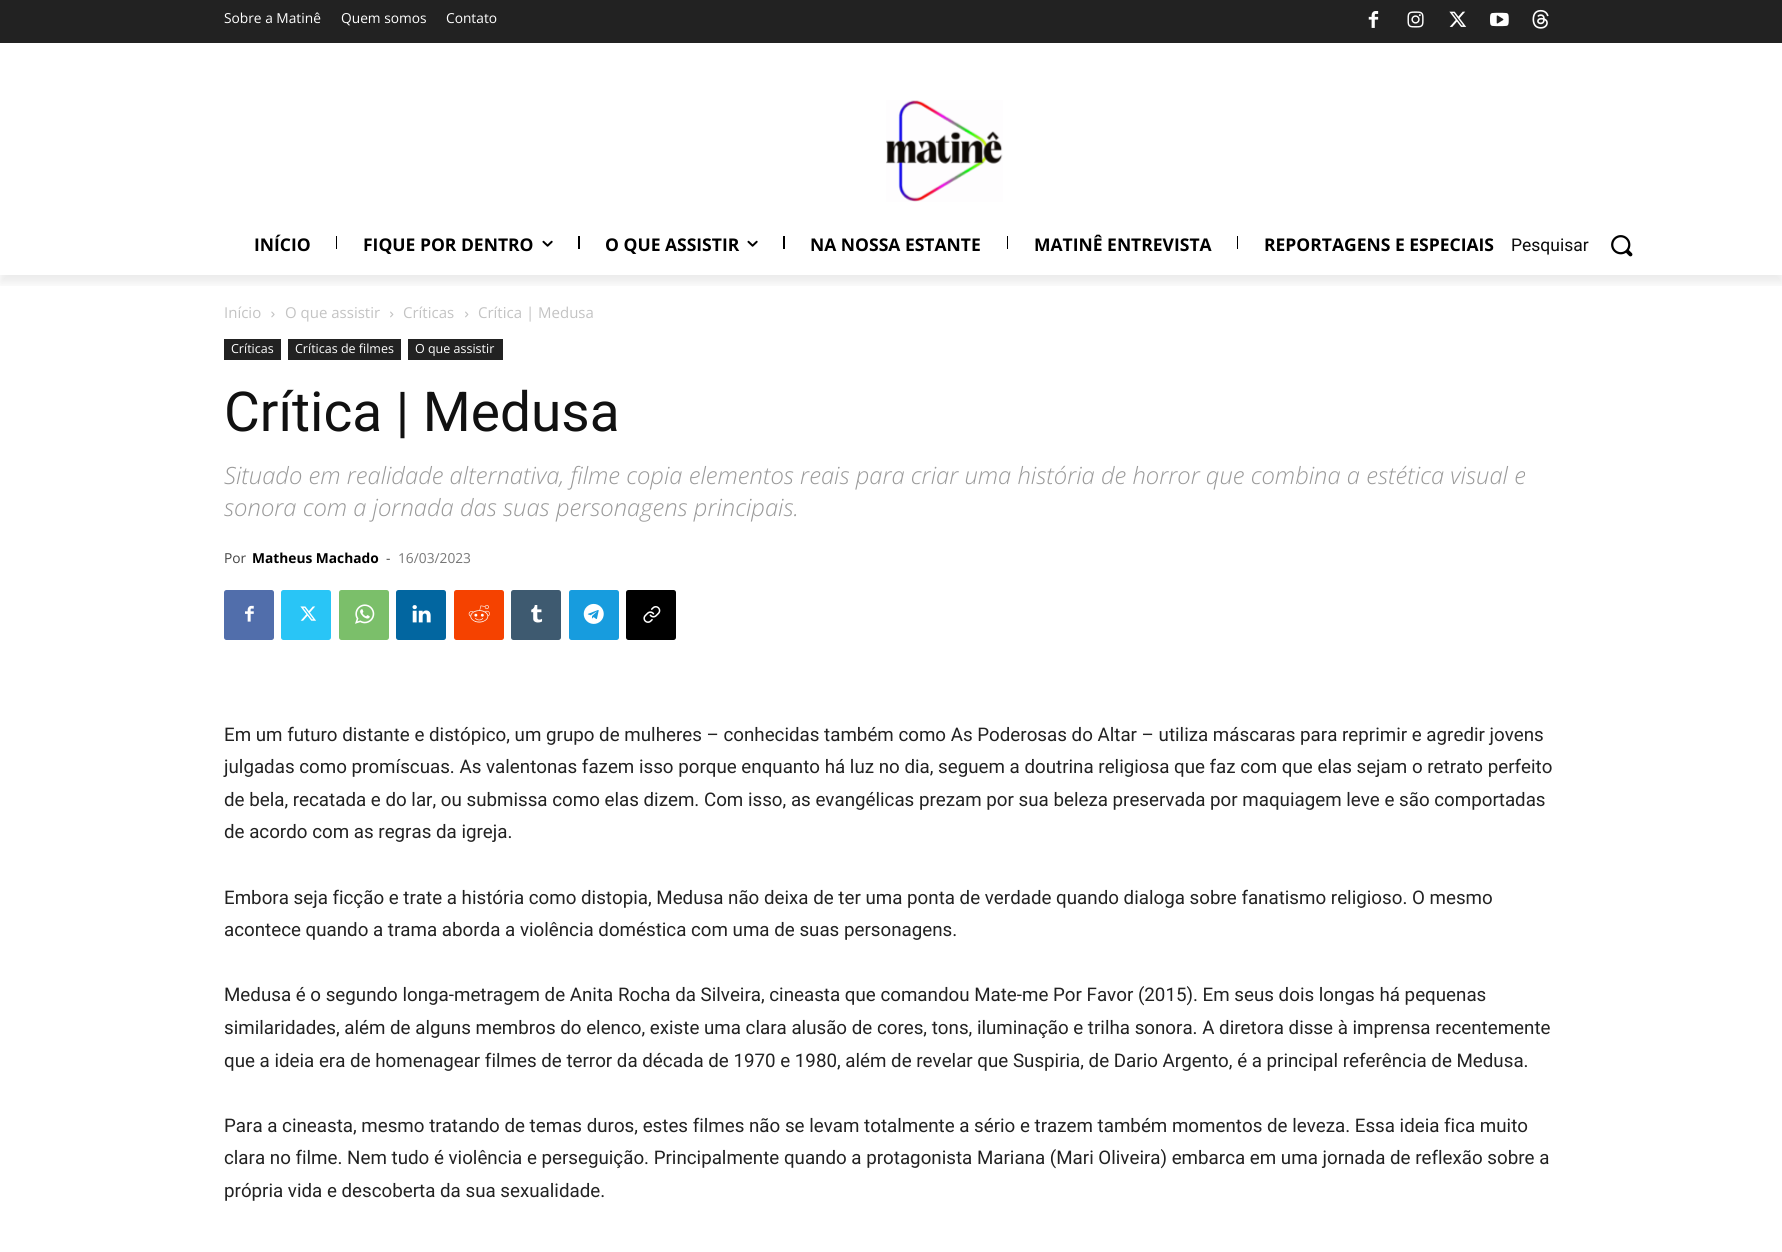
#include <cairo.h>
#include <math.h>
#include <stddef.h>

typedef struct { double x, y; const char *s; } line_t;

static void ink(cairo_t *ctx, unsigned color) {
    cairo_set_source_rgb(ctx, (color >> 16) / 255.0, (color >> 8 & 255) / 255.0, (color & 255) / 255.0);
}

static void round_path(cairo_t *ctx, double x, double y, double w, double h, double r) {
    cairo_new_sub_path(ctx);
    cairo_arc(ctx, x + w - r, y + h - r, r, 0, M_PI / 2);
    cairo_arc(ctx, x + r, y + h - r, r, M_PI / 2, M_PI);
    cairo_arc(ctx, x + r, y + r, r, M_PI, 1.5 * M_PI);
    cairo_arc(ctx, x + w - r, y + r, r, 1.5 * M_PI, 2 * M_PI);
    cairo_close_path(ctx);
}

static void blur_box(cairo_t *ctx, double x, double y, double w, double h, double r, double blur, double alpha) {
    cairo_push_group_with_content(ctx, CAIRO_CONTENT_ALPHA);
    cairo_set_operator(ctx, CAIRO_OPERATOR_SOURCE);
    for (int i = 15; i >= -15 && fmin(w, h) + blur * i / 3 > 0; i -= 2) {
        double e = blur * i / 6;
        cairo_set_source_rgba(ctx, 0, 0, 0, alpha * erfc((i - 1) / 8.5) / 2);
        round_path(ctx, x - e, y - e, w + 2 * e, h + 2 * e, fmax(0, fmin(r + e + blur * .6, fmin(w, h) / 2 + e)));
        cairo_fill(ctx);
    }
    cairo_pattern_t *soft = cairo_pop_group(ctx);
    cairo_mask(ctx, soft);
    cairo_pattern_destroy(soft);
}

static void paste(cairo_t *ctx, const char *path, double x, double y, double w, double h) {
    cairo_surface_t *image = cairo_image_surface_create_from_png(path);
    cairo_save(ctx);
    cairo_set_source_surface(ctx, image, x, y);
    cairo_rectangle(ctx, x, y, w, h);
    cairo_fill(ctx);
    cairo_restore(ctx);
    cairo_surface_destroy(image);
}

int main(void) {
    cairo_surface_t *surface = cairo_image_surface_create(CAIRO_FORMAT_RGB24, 1782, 1252);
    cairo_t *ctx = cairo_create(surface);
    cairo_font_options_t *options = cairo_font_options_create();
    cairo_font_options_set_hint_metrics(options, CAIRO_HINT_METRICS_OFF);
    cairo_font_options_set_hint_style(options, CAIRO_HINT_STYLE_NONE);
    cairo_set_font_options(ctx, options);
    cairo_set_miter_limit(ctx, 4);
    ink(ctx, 0xFFFFFF);
    cairo_paint(ctx);
    ink(ctx, 0x222222);
    cairo_rectangle(ctx, 0, 0, 1782, 43);
    cairo_fill(ctx);
    paste(ctx, "media/1.png", 1368, 11, 11, 17);
    paste(ctx, "media/2.png", 1407, 11, 17, 17);
    paste(ctx, "media/3.png", 1449, 11, 18, 16);
    paste(ctx, "media/4.png", 1490, 12, 19, 15);
    paste(ctx, "media/5.png", 1532, 9, 17, 20);
    paste(ctx, "media/6.png", 886, 100, 117, 102);
    cairo_save(ctx);
    cairo_rectangle(ctx, 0, 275, 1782, 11);
    cairo_clip(ctx);
    ink(ctx, 0x000000);
    blur_box(ctx, 0, 8, 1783, 275, 0, 5, 0.08);
    cairo_restore(ctx);
    cairo_select_font_face(ctx, "Open Sans", CAIRO_FONT_SLANT_NORMAL, CAIRO_FONT_WEIGHT_NORMAL);
    cairo_set_font_size(ctx, 13.75);
    ink(ctx, 0xFFFFFF);
    {
        static const line_t items[] = {
            {224, 23, "Sobre a Matinê"},
            {341, 23, "Quem somos"},
            {446, 23, "Contato"},
        };
        for (size_t i = 0; i < sizeof items / sizeof *items; i++) {
            cairo_move_to(ctx, items[i].x, items[i].y);
            cairo_show_text(ctx, items[i].s);
        }
    }
    cairo_select_font_face(ctx, "Open Sans", CAIRO_FONT_SLANT_NORMAL, CAIRO_FONT_WEIGHT_BOLD);
    cairo_set_font_size(ctx, 17.5);
    ink(ctx, 0x000000);
    cairo_move_to(ctx, 254, 251);
    cairo_show_text(ctx, "INÍCIO");
    cairo_rectangle(ctx, 336, 236, 1, 13);
    cairo_fill(ctx);
    cairo_move_to(ctx, 363, 251);
    cairo_show_text(ctx, "FIQUE POR DENTRO");
    paste(ctx, "media/7.png", 542, 240, 11, 7);
    cairo_rectangle(ctx, 578, 236, 2, 13);
    cairo_fill(ctx);
    cairo_move_to(ctx, 605, 251);
    cairo_show_text(ctx, "O QUE ASSISTIR");
    paste(ctx, "media/7.png", 747, 240, 11, 7);
    cairo_rectangle(ctx, 783, 236, 2, 13);
    cairo_fill(ctx);
    cairo_move_to(ctx, 810, 251);
    cairo_show_text(ctx, "NA NOSSA ESTANTE");
    cairo_rectangle(ctx, 1007, 236, 1, 13);
    cairo_fill(ctx);
    cairo_move_to(ctx, 1034, 251);
    cairo_show_text(ctx, "MATINÊ ENTREVISTA");
    cairo_rectangle(ctx, 1237, 236, 1, 13);
    cairo_fill(ctx);
    cairo_move_to(ctx, 1264, 251);
    cairo_show_text(ctx, "REPORTAGENS E ESPECIAIS");
    cairo_select_font_face(ctx, "Roboto", CAIRO_FONT_SLANT_NORMAL, CAIRO_FONT_WEIGHT_NORMAL);
    ink(ctx, 0x0A0A0A);
    cairo_move_to(ctx, 1511, 251);
    cairo_show_text(ctx, "Pesquisar");
    paste(ctx, "media/8.png", 1611, 235, 22, 22);
    cairo_select_font_face(ctx, "Open Sans", CAIRO_FONT_SLANT_NORMAL, CAIRO_FONT_WEIGHT_NORMAL);
    cairo_set_font_size(ctx, 15);
    ink(ctx, 0xC3C3C3);
    cairo_move_to(ctx, 224, 318);
    cairo_show_text(ctx, "Início");
    paste(ctx, "media/9.png", 271, 311, 4, 7);
    cairo_move_to(ctx, 285, 318);
    cairo_show_text(ctx, "O que assistir");
    paste(ctx, "media/10.png", 390, 311, 4, 7);
    cairo_move_to(ctx, 403, 318);
    cairo_show_text(ctx, "Críticas");
    paste(ctx, "media/10.png", 465, 311, 4, 7);
    cairo_move_to(ctx, 478, 318);
    cairo_show_text(ctx, "Crítica | Medusa");
    ink(ctx, 0x222222);
    cairo_rectangle(ctx, 224, 339, 57, 21);
    cairo_fill(ctx);
    cairo_set_font_size(ctx, 12.5);
    ink(ctx, 0xFFFFFF);
    cairo_move_to(ctx, 231, 353);
    cairo_show_text(ctx, "Críticas");
    ink(ctx, 0x222222);
    cairo_rectangle(ctx, 288, 339, 113, 21);
    cairo_fill(ctx);
    ink(ctx, 0xFFFFFF);
    cairo_move_to(ctx, 295, 353);
    cairo_show_text(ctx, "Críticas de filmes");
    ink(ctx, 0x222222);
    cairo_rectangle(ctx, 408, 339, 95, 21);
    cairo_fill(ctx);
    ink(ctx, 0xFFFFFF);
    cairo_move_to(ctx, 415, 353);
    cairo_show_text(ctx, "O que assistir");
    cairo_select_font_face(ctx, "Roboto", CAIRO_FONT_SLANT_NORMAL, CAIRO_FONT_WEIGHT_NORMAL);
    cairo_set_font_size(ctx, 55);
    ink(ctx, 0x111111);
    cairo_move_to(ctx, 224, 431);
    cairo_show_text(ctx, "Crítica | Medusa");
    cairo_select_font_face(ctx, "Open Sans Light", CAIRO_FONT_SLANT_ITALIC, CAIRO_FONT_WEIGHT_NORMAL);
    cairo_set_font_size(ctx, 23.75);
    ink(ctx, 0x999999);
    cairo_move_to(ctx, 224, 484);
    cairo_show_text(ctx, "Situado em realidade alternativa, filme copia elementos reais para criar uma história de horror que combina a estética visual e");
    cairo_move_to(ctx, 224, 516);
    cairo_show_text(ctx, "sonora com a jornada das suas personagens principais.");
    cairo_select_font_face(ctx, "Open Sans", CAIRO_FONT_SLANT_NORMAL, CAIRO_FONT_WEIGHT_NORMAL);
    cairo_set_font_size(ctx, 13.75);
    ink(ctx, 0x444444);
    cairo_move_to(ctx, 224, 563);
    cairo_show_text(ctx, "Por");
    cairo_select_font_face(ctx, "Open Sans", CAIRO_FONT_SLANT_NORMAL, CAIRO_FONT_WEIGHT_BOLD);
    ink(ctx, 0x000000);
    cairo_move_to(ctx, 252, 563);
    cairo_show_text(ctx, "Matheus Machado");
    cairo_select_font_face(ctx, "Open Sans", CAIRO_FONT_SLANT_NORMAL, CAIRO_FONT_WEIGHT_NORMAL);
    ink(ctx, 0x444444);
    cairo_move_to(ctx, 386, 563);
    cairo_show_text(ctx, "-");
    ink(ctx, 0x767676);
    cairo_move_to(ctx, 398, 563);
    cairo_show_text(ctx, "16/03/2023");
    ink(ctx, 0x516EAB);
    round_path(ctx, 224, 590, 50, 50, 2.5);
    cairo_fill(ctx);
    paste(ctx, "media/11.png", 245, 605, 9, 17);
    ink(ctx, 0x29C5F6);
    round_path(ctx, 281, 590, 50, 50, 2.5);
    cairo_fill(ctx);
    paste(ctx, "media/12.png", 300, 606, 16, 15);
    ink(ctx, 0x7BBF6A);
    round_path(ctx, 339, 590, 50, 50, 2.5);
    cairo_fill(ctx);
    paste(ctx, "media/13.png", 355, 604, 20, 20);
    ink(ctx, 0x0266A0);
    round_path(ctx, 396, 590, 50, 50, 2.5);
    cairo_fill(ctx);
    paste(ctx, "media/14.png", 412, 605, 19, 18);
    ink(ctx, 0xF54200);
    round_path(ctx, 454, 590, 50, 50, 2.5);
    cairo_fill(ctx);
    paste(ctx, "media/15.png", 468, 605, 22, 18);
    ink(ctx, 0x3E5A70);
    round_path(ctx, 511, 590, 50, 50, 2.5);
    cairo_fill(ctx);
    paste(ctx, "media/16.png", 531, 605, 12, 18);
    ink(ctx, 0x179CDE);
    round_path(ctx, 569, 590, 50, 50, 2.5);
    cairo_fill(ctx);
    paste(ctx, "media/17.png", 583, 603, 21, 21);
    ink(ctx, 0x000000);
    round_path(ctx, 626, 590, 50, 50, 2.5);
    cairo_fill(ctx);
    paste(ctx, "media/18.png", 643, 606, 18, 17);
    cairo_select_font_face(ctx, "Roboto", CAIRO_FONT_SLANT_NORMAL, CAIRO_FONT_WEIGHT_NORMAL);
    cairo_set_font_size(ctx, 18.75);
    ink(ctx, 0x222222);
    {
        static const line_t items[] = {
            {224, 741, "Em um futuro distante e distópico, um grupo de mulheres – conhecidas também como As Poderosas do Altar – utiliza máscaras para reprimir e agredir jovens"},
            {224, 773, "julgadas como promíscuas. As valentonas fazem isso porque enquanto há luz no dia, seguem a doutrina religiosa que faz com que elas sejam o retrato perfeito"},
            {224, 806, "de bela, recatada e do lar, ou submissa como elas dizem. Com isso, as evangélicas prezam por sua beleza preservada por maquiagem leve e são comportadas"},
            {224, 838, "de acordo com as regras da igreja."},
            {224, 904, "Embora seja ficção e trate a história como distopia, Medusa não deixa de ter uma ponta de verdade quando dialoga sobre fanatismo religioso. O mesmo"},
            {224, 936, "acontece quando a trama aborda a violência doméstica com uma de suas personagens."},
            {224, 1001, "Medusa é o segundo longa-metragem de Anita Rocha da Silveira, cineasta que comandou Mate-me Por Favor (2015). Em seus dois longas há pequenas"},
            {224, 1034, "similaridades, além de alguns membros do elenco, existe uma clara alusão de cores, tons, iluminação e trilha sonora. A diretora disse à imprensa recentemente"},
            {224, 1067, "que a ideia era de homenagear filmes de terror da década de 1970 e 1980, além de revelar que Suspiria, de Dario Argento, é a principal referência de Medusa."},
            {224, 1132, "Para a cineasta, mesmo tratando de temas duros, estes filmes não se levam totalmente a sério e trazem também momentos de leveza. Essa ideia fica muito"},
            {224, 1164, "clara no filme. Nem tudo é violência e perseguição. Principalmente quando a protagonista Mariana (Mari Oliveira) embarca em uma jornada de reflexão sobre a"},
            {224, 1197, "própria vida e descoberta da sua sexualidade."},
        };
        for (size_t i = 0; i < sizeof items / sizeof *items; i++) {
            cairo_move_to(ctx, items[i].x, items[i].y);
            cairo_show_text(ctx, items[i].s);
        }
    }
    cairo_surface_write_to_png(surface, "image.png");
    cairo_font_options_destroy(options);
    cairo_destroy(ctx);
    cairo_surface_destroy(surface);
    return 0;
}
